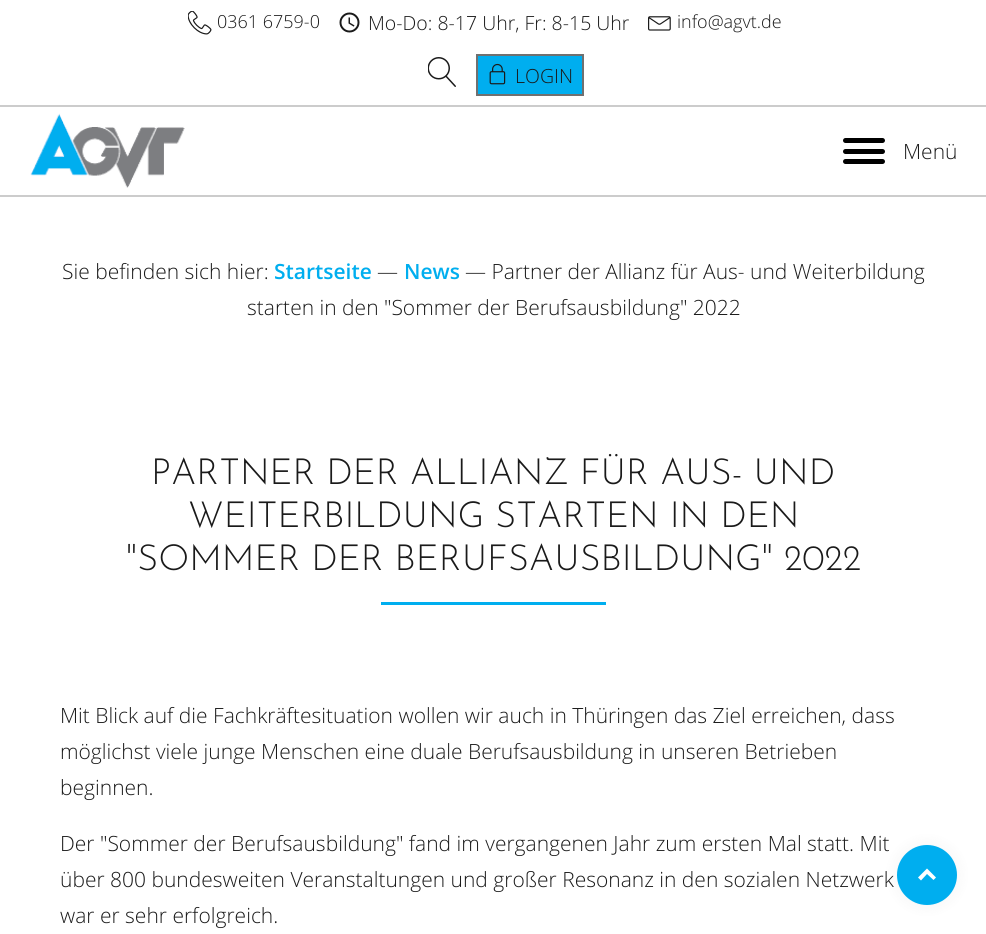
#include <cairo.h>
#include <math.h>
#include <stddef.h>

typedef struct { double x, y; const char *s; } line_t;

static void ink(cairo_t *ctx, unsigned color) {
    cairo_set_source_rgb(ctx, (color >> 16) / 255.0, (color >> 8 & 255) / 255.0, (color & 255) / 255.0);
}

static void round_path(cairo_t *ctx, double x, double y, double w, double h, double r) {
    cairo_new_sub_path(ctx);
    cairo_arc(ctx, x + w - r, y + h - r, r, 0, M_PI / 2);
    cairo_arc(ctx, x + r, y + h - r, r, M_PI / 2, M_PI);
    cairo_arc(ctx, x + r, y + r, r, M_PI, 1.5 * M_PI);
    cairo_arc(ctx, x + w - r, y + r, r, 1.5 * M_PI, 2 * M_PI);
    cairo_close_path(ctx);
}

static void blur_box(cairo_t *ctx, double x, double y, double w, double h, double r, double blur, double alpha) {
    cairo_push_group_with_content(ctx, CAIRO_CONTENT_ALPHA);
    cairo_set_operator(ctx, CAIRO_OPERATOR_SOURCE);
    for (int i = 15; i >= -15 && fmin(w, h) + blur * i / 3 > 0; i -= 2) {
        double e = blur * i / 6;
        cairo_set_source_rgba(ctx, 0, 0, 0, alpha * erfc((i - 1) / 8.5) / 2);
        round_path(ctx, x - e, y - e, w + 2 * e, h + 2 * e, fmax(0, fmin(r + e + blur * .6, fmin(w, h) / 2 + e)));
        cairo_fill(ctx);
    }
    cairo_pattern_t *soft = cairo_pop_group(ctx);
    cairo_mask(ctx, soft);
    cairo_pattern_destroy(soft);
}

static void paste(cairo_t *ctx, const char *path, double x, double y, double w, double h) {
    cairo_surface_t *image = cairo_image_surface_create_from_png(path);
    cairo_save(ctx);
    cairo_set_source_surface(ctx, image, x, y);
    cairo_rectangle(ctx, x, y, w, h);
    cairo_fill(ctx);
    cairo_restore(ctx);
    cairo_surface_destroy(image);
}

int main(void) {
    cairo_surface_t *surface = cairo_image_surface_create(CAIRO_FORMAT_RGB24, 986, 934);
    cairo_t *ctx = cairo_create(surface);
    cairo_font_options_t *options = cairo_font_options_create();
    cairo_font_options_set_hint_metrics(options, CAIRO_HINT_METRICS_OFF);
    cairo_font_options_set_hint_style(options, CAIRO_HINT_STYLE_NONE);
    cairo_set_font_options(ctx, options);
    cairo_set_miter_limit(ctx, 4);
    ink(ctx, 0xFFFFFF);
    cairo_paint(ctx);
    ink(ctx, 0xCCCCCC);
    cairo_rectangle(ctx, 0, 105, 986, 2);
    cairo_fill(ctx);
    paste(ctx, "media/1.png", 188, 11, 24, 24);
    cairo_select_font_face(ctx, "Open Sans Light", CAIRO_FONT_SLANT_NORMAL, CAIRO_FONT_WEIGHT_NORMAL);
    cairo_set_font_size(ctx, 18);
    ink(ctx, 0x1A1A1A);
    cairo_move_to(ctx, 217, 28);
    cairo_show_text(ctx, "0361 6759-0");
    paste(ctx, "media/2.png", 339, 12, 21, 21);
    cairo_set_font_size(ctx, 19.5);
    cairo_move_to(ctx, 368, 30);
    cairo_show_text(ctx, "Mo-Do: 8-17 Uhr, Fr: 8-15 Uhr");
    paste(ctx, "media/3.png", 648, 16, 23, 15);
    cairo_set_font_size(ctx, 18);
    cairo_move_to(ctx, 677, 28);
    cairo_show_text(ctx, "info@agvt.de");
    paste(ctx, "media/4.png", 428, 57, 28, 30);
    ink(ctx, 0x00AEEF);
    cairo_rectangle(ctx, 477, 55, 106, 40);
    cairo_fill_preserve(ctx);
    ink(ctx, 0x707070);
    cairo_stroke(ctx);
    paste(ctx, "media/5.png", 489, 63, 17, 22);
    cairo_set_font_size(ctx, 19.5);
    ink(ctx, 0x1A1A1A);
    cairo_move_to(ctx, 515, 83);
    cairo_show_text(ctx, "LOGIN");
    ink(ctx, 0xCCCCCC);
    cairo_rectangle(ctx, 0, 195, 986, 2);
    cairo_fill(ctx);
    paste(ctx, "media/6.png", 30, 113, 155, 75);
    ink(ctx, 0x000000);
    round_path(ctx, 843, 138, 42, 5, 2.5);
    cairo_fill(ctx);
    round_path(ctx, 843, 149, 42, 5, 2.5);
    cairo_fill(ctx);
    round_path(ctx, 843, 159, 42, 5, 2.5);
    cairo_fill(ctx);
    cairo_set_font_size(ctx, 21);
    ink(ctx, 0x1A1A1A);
    cairo_move_to(ctx, 903, 159);
    cairo_show_text(ctx, "Menü");
    cairo_move_to(ctx, 62, 279);
    cairo_show_text(ctx, "Sie befinden sich hier:");
    cairo_select_font_face(ctx, "Open Sans SemiBold", CAIRO_FONT_SLANT_NORMAL, CAIRO_FONT_WEIGHT_NORMAL);
    ink(ctx, 0x00AEEF);
    cairo_move_to(ctx, 274, 279);
    cairo_show_text(ctx, "Startseite");
    cairo_select_font_face(ctx, "Open Sans Light", CAIRO_FONT_SLANT_NORMAL, CAIRO_FONT_WEIGHT_NORMAL);
    ink(ctx, 0x1A1A1A);
    cairo_move_to(ctx, 377, 279);
    cairo_show_text(ctx, "—");
    cairo_select_font_face(ctx, "Open Sans SemiBold", CAIRO_FONT_SLANT_NORMAL, CAIRO_FONT_WEIGHT_NORMAL);
    ink(ctx, 0x00AEEF);
    cairo_move_to(ctx, 404, 279);
    cairo_show_text(ctx, "News");
    cairo_select_font_face(ctx, "Open Sans Light", CAIRO_FONT_SLANT_NORMAL, CAIRO_FONT_WEIGHT_NORMAL);
    ink(ctx, 0x1A1A1A);
    cairo_move_to(ctx, 465, 279);
    cairo_show_text(ctx, "— Partner der Allianz für Aus- und Weiterbildung");
    cairo_move_to(ctx, 247, 315);
    cairo_show_text(ctx, "starten in den \"Sommer der Berufsausbildung\" 2022");
    cairo_select_font_face(ctx, "Josefin Sans Thin", CAIRO_FONT_SLANT_NORMAL, CAIRO_FONT_WEIGHT_NORMAL);
    cairo_set_font_size(ctx, 36);
    {
        static const line_t items[] = {
            {151, 484, "PARTNER DER ALLIANZ FÜR AUS- UND"},
            {188, 527, "WEITERBILDUNG STARTEN IN DEN"},
            {126, 570, "\"SOMMER DER BERUFSAUSBILDUNG\" 2022"},
        };
        for (size_t i = 0; i < sizeof items / sizeof *items; i++) {
            cairo_move_to(ctx, items[i].x, items[i].y);
            cairo_show_text(ctx, items[i].s);
        }
    }
    ink(ctx, 0x00AEEF);
    cairo_rectangle(ctx, 381, 602, 225, 3);
    cairo_fill(ctx);
    cairo_select_font_face(ctx, "Open Sans Light", CAIRO_FONT_SLANT_NORMAL, CAIRO_FONT_WEIGHT_NORMAL);
    cairo_set_font_size(ctx, 21);
    ink(ctx, 0x1A1A1A);
    {
        static const line_t items[] = {
            {60, 723, "Mit Blick auf die Fachkräftesituation wollen wir auch in Thüringen das Ziel erreichen, dass"},
            {60, 759, "möglichst viele junge Menschen eine duale Berufsausbildung in unseren Betrieben"},
            {60, 795, "beginnen."},
            {60, 851, "Der \"Sommer der Berufsausbildung\" fand im vergangenen Jahr zum ersten Mal statt. Mit"},
            {60, 887, "über 800 bundesweiten Veranstaltungen und großer Resonanz in den sozialen Netzwerk"},
            {60, 923, "war er sehr erfolgreich."},
        };
        for (size_t i = 0; i < sizeof items / sizeof *items; i++) {
            cairo_move_to(ctx, items[i].x, items[i].y);
            cairo_show_text(ctx, items[i].s);
        }
    }
    ink(ctx, 0x000000);
    blur_box(ctx, 897, 845, 60, 60, 30, 7.5, 0.05);
    ink(ctx, 0x00AEEF);
    cairo_arc(ctx, 927, 875, 30, 0, 2 * M_PI);
    cairo_fill(ctx);
    ink(ctx, 0xFFFFFF);
    cairo_new_path(ctx);
    cairo_move_to(ctx, 927, 868.5);
    cairo_line_to(ctx, 936, 877.5);
    cairo_line_to(ctx, 933.5, 880);
    cairo_line_to(ctx, 927, 874);
    cairo_line_to(ctx, 921, 880.5);
    cairo_line_to(ctx, 918, 877.5);
    cairo_close_path(ctx);
    cairo_fill(ctx);
    cairo_surface_write_to_png(surface, "image.png");
    cairo_font_options_destroy(options);
    cairo_destroy(ctx);
    cairo_surface_destroy(surface);
    return 0;
}
